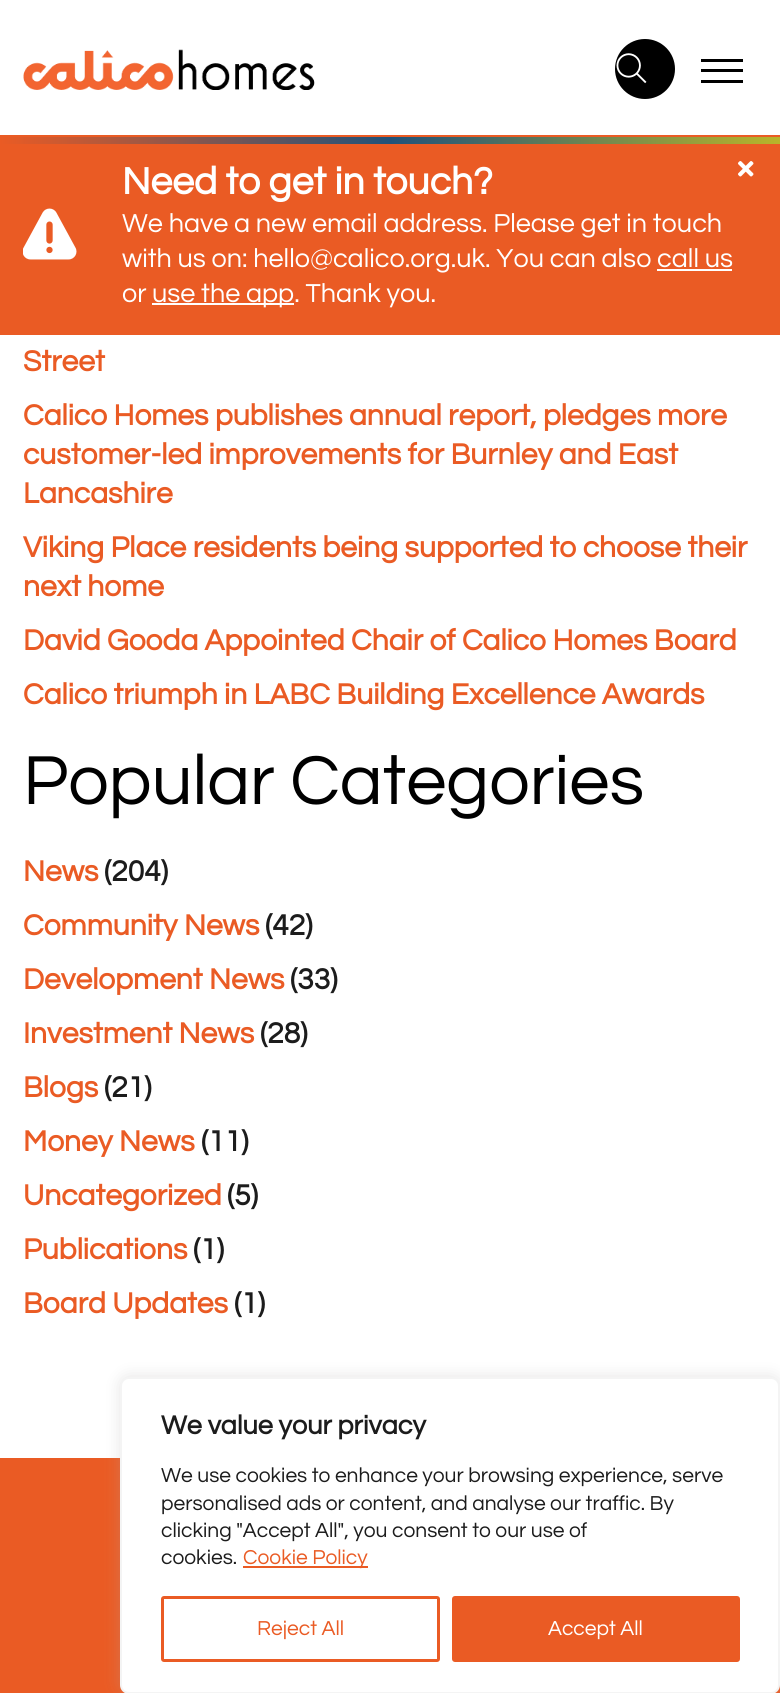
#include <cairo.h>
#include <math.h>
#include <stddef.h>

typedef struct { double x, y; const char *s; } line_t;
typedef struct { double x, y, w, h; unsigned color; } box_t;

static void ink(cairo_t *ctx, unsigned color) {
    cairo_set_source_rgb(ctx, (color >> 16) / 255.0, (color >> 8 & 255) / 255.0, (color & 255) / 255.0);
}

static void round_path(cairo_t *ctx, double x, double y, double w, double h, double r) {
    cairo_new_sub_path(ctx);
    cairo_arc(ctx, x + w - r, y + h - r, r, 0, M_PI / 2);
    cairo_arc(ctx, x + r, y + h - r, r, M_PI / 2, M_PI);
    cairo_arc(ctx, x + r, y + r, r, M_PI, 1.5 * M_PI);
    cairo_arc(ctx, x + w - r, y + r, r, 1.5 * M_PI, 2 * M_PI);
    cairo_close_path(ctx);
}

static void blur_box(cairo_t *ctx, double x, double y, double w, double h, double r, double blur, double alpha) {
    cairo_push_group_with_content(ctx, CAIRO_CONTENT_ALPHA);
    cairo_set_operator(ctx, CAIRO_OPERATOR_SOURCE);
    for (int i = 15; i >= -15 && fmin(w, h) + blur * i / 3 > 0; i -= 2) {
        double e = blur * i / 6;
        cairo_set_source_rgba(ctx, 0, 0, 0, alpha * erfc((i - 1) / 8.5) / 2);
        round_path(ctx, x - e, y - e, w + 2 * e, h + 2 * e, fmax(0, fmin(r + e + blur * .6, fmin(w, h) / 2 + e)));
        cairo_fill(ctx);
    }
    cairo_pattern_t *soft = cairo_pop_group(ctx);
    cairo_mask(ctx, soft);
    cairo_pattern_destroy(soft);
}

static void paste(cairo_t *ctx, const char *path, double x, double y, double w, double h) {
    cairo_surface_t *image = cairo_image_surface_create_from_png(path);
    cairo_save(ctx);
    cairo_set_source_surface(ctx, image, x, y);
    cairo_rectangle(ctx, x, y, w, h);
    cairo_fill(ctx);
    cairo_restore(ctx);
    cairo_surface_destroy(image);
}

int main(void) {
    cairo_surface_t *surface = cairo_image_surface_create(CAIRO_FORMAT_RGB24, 780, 1693);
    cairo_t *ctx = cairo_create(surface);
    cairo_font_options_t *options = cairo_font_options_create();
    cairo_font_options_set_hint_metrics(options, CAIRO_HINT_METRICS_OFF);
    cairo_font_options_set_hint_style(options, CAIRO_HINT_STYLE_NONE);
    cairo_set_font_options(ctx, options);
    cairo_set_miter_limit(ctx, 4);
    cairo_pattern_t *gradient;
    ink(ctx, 0xFFFFFF);
    cairo_paint(ctx);
    paste(ctx, "media/1.png", 23, 49, 292, 41);
    ink(ctx, 0x000000);
    cairo_arc(ctx, 645, 69, 30, 0, 2 * M_PI);
    cairo_fill(ctx);
    paste(ctx, "media/2.png", 616, 53, 31, 31);
    {
        static const box_t items[] = {
            {701, 59, 42, 3, 0x000000},
            {701, 69, 42, 3, 0x000000},
            {701, 80, 42, 3, 0x000000},
            {0, 135, 780, 200, 0xEA5B24},
        };
        for (size_t i = 0; i < sizeof items / sizeof *items; i++) {
            ink(ctx, items[i].color);
            cairo_rectangle(ctx, items[i].x, items[i].y, items[i].w, items[i].h);
            cairo_fill(ctx);
        }
    }
    gradient = cairo_pattern_create_linear(780, 140, 0, 140);
    cairo_pattern_add_color_stop_rgba(gradient, 0, 0.725, 0.71, 0.165, 1);
    cairo_pattern_add_color_stop_rgba(gradient, 0.5, 0.129, 0.322, 0.475, 1);
    cairo_pattern_add_color_stop_rgba(gradient, 1, 0.918, 0.357, 0.141, 1);
    cairo_set_source(ctx, gradient);
    cairo_pattern_destroy(gradient);
    cairo_rectangle(ctx, 0, 137, 780, 7);
    cairo_fill(ctx);
    paste(ctx, "media/3.png", 23, 208, 54, 52);
    cairo_select_font_face(ctx, "Questrial", CAIRO_FONT_SLANT_NORMAL, CAIRO_FONT_WEIGHT_BOLD);
    cairo_set_font_size(ctx, 39);
    ink(ctx, 0xFFFFFF);
    cairo_move_to(ctx, 122, 194);
    cairo_show_text(ctx, "Need to get in touch?");
    cairo_select_font_face(ctx, "Questrial", CAIRO_FONT_SLANT_NORMAL, CAIRO_FONT_WEIGHT_NORMAL);
    cairo_set_font_size(ctx, 27);
    cairo_move_to(ctx, 122, 232);
    cairo_show_text(ctx, "We have a new email address. Please get in touch");
    cairo_move_to(ctx, 122, 267);
    cairo_show_text(ctx, "with us on: hello@calico.org.uk. You can also call us");
    cairo_rectangle(ctx, 657, 269, 75, 2);
    cairo_fill(ctx);
    cairo_move_to(ctx, 122, 302);
    cairo_show_text(ctx, "or");
    cairo_rectangle(ctx, 152, 303, 142, 2);
    cairo_fill(ctx);
    cairo_move_to(ctx, 152, 302);
    cairo_show_text(ctx, "use the app. Thank you.");
    paste(ctx, "media/4.png", 738, 161, 16, 16);
    cairo_select_font_face(ctx, "Questrial", CAIRO_FONT_SLANT_NORMAL, CAIRO_FONT_WEIGHT_BOLD);
    cairo_set_font_size(ctx, 30);
    ink(ctx, 0xEA5B24);
    {
        static const line_t items[] = {
            {23, 371, "Street"},
            {23, 425, "Calico Homes publishes annual report, pledges more"},
            {23, 464, "customer-led improvements for Burnley and East"},
            {23, 503, "Lancashire"},
            {23, 557, "Viking Place residents being supported to choose their"},
            {23, 596, "next home"},
            {23, 650, "David Gooda Appointed Chair of Calico Homes Board"},
            {23, 704, "Calico triumph in LABC Building Excellence Awards"},
        };
        for (size_t i = 0; i < sizeof items / sizeof *items; i++) {
            cairo_move_to(ctx, items[i].x, items[i].y);
            cairo_show_text(ctx, items[i].s);
        }
    }
    cairo_select_font_face(ctx, "Questrial", CAIRO_FONT_SLANT_NORMAL, CAIRO_FONT_WEIGHT_NORMAL);
    cairo_set_font_size(ctx, 72);
    ink(ctx, 0x000000);
    cairo_move_to(ctx, 23, 804);
    cairo_show_text(ctx, "Popular Categories");
    cairo_select_font_face(ctx, "Questrial", CAIRO_FONT_SLANT_NORMAL, CAIRO_FONT_WEIGHT_BOLD);
    cairo_set_font_size(ctx, 30);
    ink(ctx, 0xEA5B24);
    cairo_move_to(ctx, 23, 881);
    cairo_show_text(ctx, "News");
    ink(ctx, 0x1C1C1C);
    cairo_move_to(ctx, 104, 881);
    cairo_show_text(ctx, "(204)");
    ink(ctx, 0xEA5B24);
    cairo_move_to(ctx, 23, 935);
    cairo_show_text(ctx, "Community News");
    ink(ctx, 0x1C1C1C);
    cairo_move_to(ctx, 265, 935);
    cairo_show_text(ctx, "(42)");
    ink(ctx, 0xEA5B24);
    cairo_move_to(ctx, 23, 989);
    cairo_show_text(ctx, "Development News");
    ink(ctx, 0x1C1C1C);
    cairo_move_to(ctx, 290, 989);
    cairo_show_text(ctx, "(33)");
    ink(ctx, 0xEA5B24);
    cairo_move_to(ctx, 23, 1043);
    cairo_show_text(ctx, "Investment News");
    ink(ctx, 0x1C1C1C);
    cairo_move_to(ctx, 260, 1043);
    cairo_show_text(ctx, "(28)");
    ink(ctx, 0xEA5B24);
    cairo_move_to(ctx, 23, 1097);
    cairo_show_text(ctx, "Blogs");
    ink(ctx, 0x1C1C1C);
    cairo_move_to(ctx, 104, 1097);
    cairo_show_text(ctx, "(21)");
    ink(ctx, 0xEA5B24);
    cairo_move_to(ctx, 23, 1151);
    cairo_show_text(ctx, "Money News");
    ink(ctx, 0x1C1C1C);
    cairo_move_to(ctx, 201, 1151);
    cairo_show_text(ctx, "(11)");
    ink(ctx, 0xEA5B24);
    cairo_move_to(ctx, 23, 1205);
    cairo_show_text(ctx, "Uncategorized");
    ink(ctx, 0x1C1C1C);
    cairo_move_to(ctx, 227, 1205);
    cairo_show_text(ctx, "(5)");
    ink(ctx, 0xEA5B24);
    cairo_move_to(ctx, 23, 1259);
    cairo_show_text(ctx, "Publications");
    ink(ctx, 0x1C1C1C);
    cairo_move_to(ctx, 193, 1259);
    cairo_show_text(ctx, "(1)");
    ink(ctx, 0xEA5B24);
    cairo_move_to(ctx, 23, 1313);
    cairo_show_text(ctx, "Board Updates");
    ink(ctx, 0x1C1C1C);
    cairo_move_to(ctx, 234, 1313);
    cairo_show_text(ctx, "(1)");
    ink(ctx, 0xEA5B24);
    cairo_rectangle(ctx, 0, 1458, 780, 235);
    cairo_fill(ctx);
    ink(ctx, 0xACABAB);
    blur_box(ctx, 120, 1376, 660, 316, 9, 7.5, 0.3);
    ink(ctx, 0xFFFFFF);
    round_path(ctx, 121, 1378, 658, 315, 8);
    cairo_fill_preserve(ctx);
    ink(ctx, 0xF4F4F4);
    cairo_stroke(ctx);
    cairo_set_font_size(ctx, 27);
    ink(ctx, 0x1C1C1C);
    cairo_move_to(ctx, 161, 1434);
    cairo_show_text(ctx, "We value your privacy");
    cairo_select_font_face(ctx, "Questrial", CAIRO_FONT_SLANT_NORMAL, CAIRO_FONT_WEIGHT_NORMAL);
    cairo_set_font_size(ctx, 21);
    {
        static const line_t items[] = {
            {161, 1482, "We use cookies to enhance your browsing experience, serve"},
            {161, 1510, "personalised ads or content, and analyse our traffic. By"},
            {161, 1537, "clicking \"Accept All\", you consent to our use of"},
            {161, 1564, "cookies."},
        };
        for (size_t i = 0; i < sizeof items / sizeof *items; i++) {
            cairo_move_to(ctx, items[i].x, items[i].y);
            cairo_show_text(ctx, items[i].s);
        }
    }
    ink(ctx, 0xEA5B24);
    cairo_rectangle(ctx, 243, 1566, 125, 2);
    cairo_fill(ctx);
    cairo_move_to(ctx, 243, 1564);
    cairo_show_text(ctx, "Cookie Policy");
    round_path(ctx, 162.5, 1597.5, 276, 63, 1.5);
    cairo_set_line_width(ctx, 3);
    cairo_stroke(ctx);
    cairo_move_to(ctx, 257, 1635);
    cairo_show_text(ctx, "Reject All");
    round_path(ctx, 453.5, 1597.5, 285, 63, 1.5);
    cairo_fill_preserve(ctx);
    cairo_stroke(ctx);
    ink(ctx, 0xFFFFFF);
    cairo_move_to(ctx, 548, 1635);
    cairo_show_text(ctx, "Accept All");
    cairo_surface_write_to_png(surface, "image.png");
    cairo_font_options_destroy(options);
    cairo_destroy(ctx);
    cairo_surface_destroy(surface);
    return 0;
}
